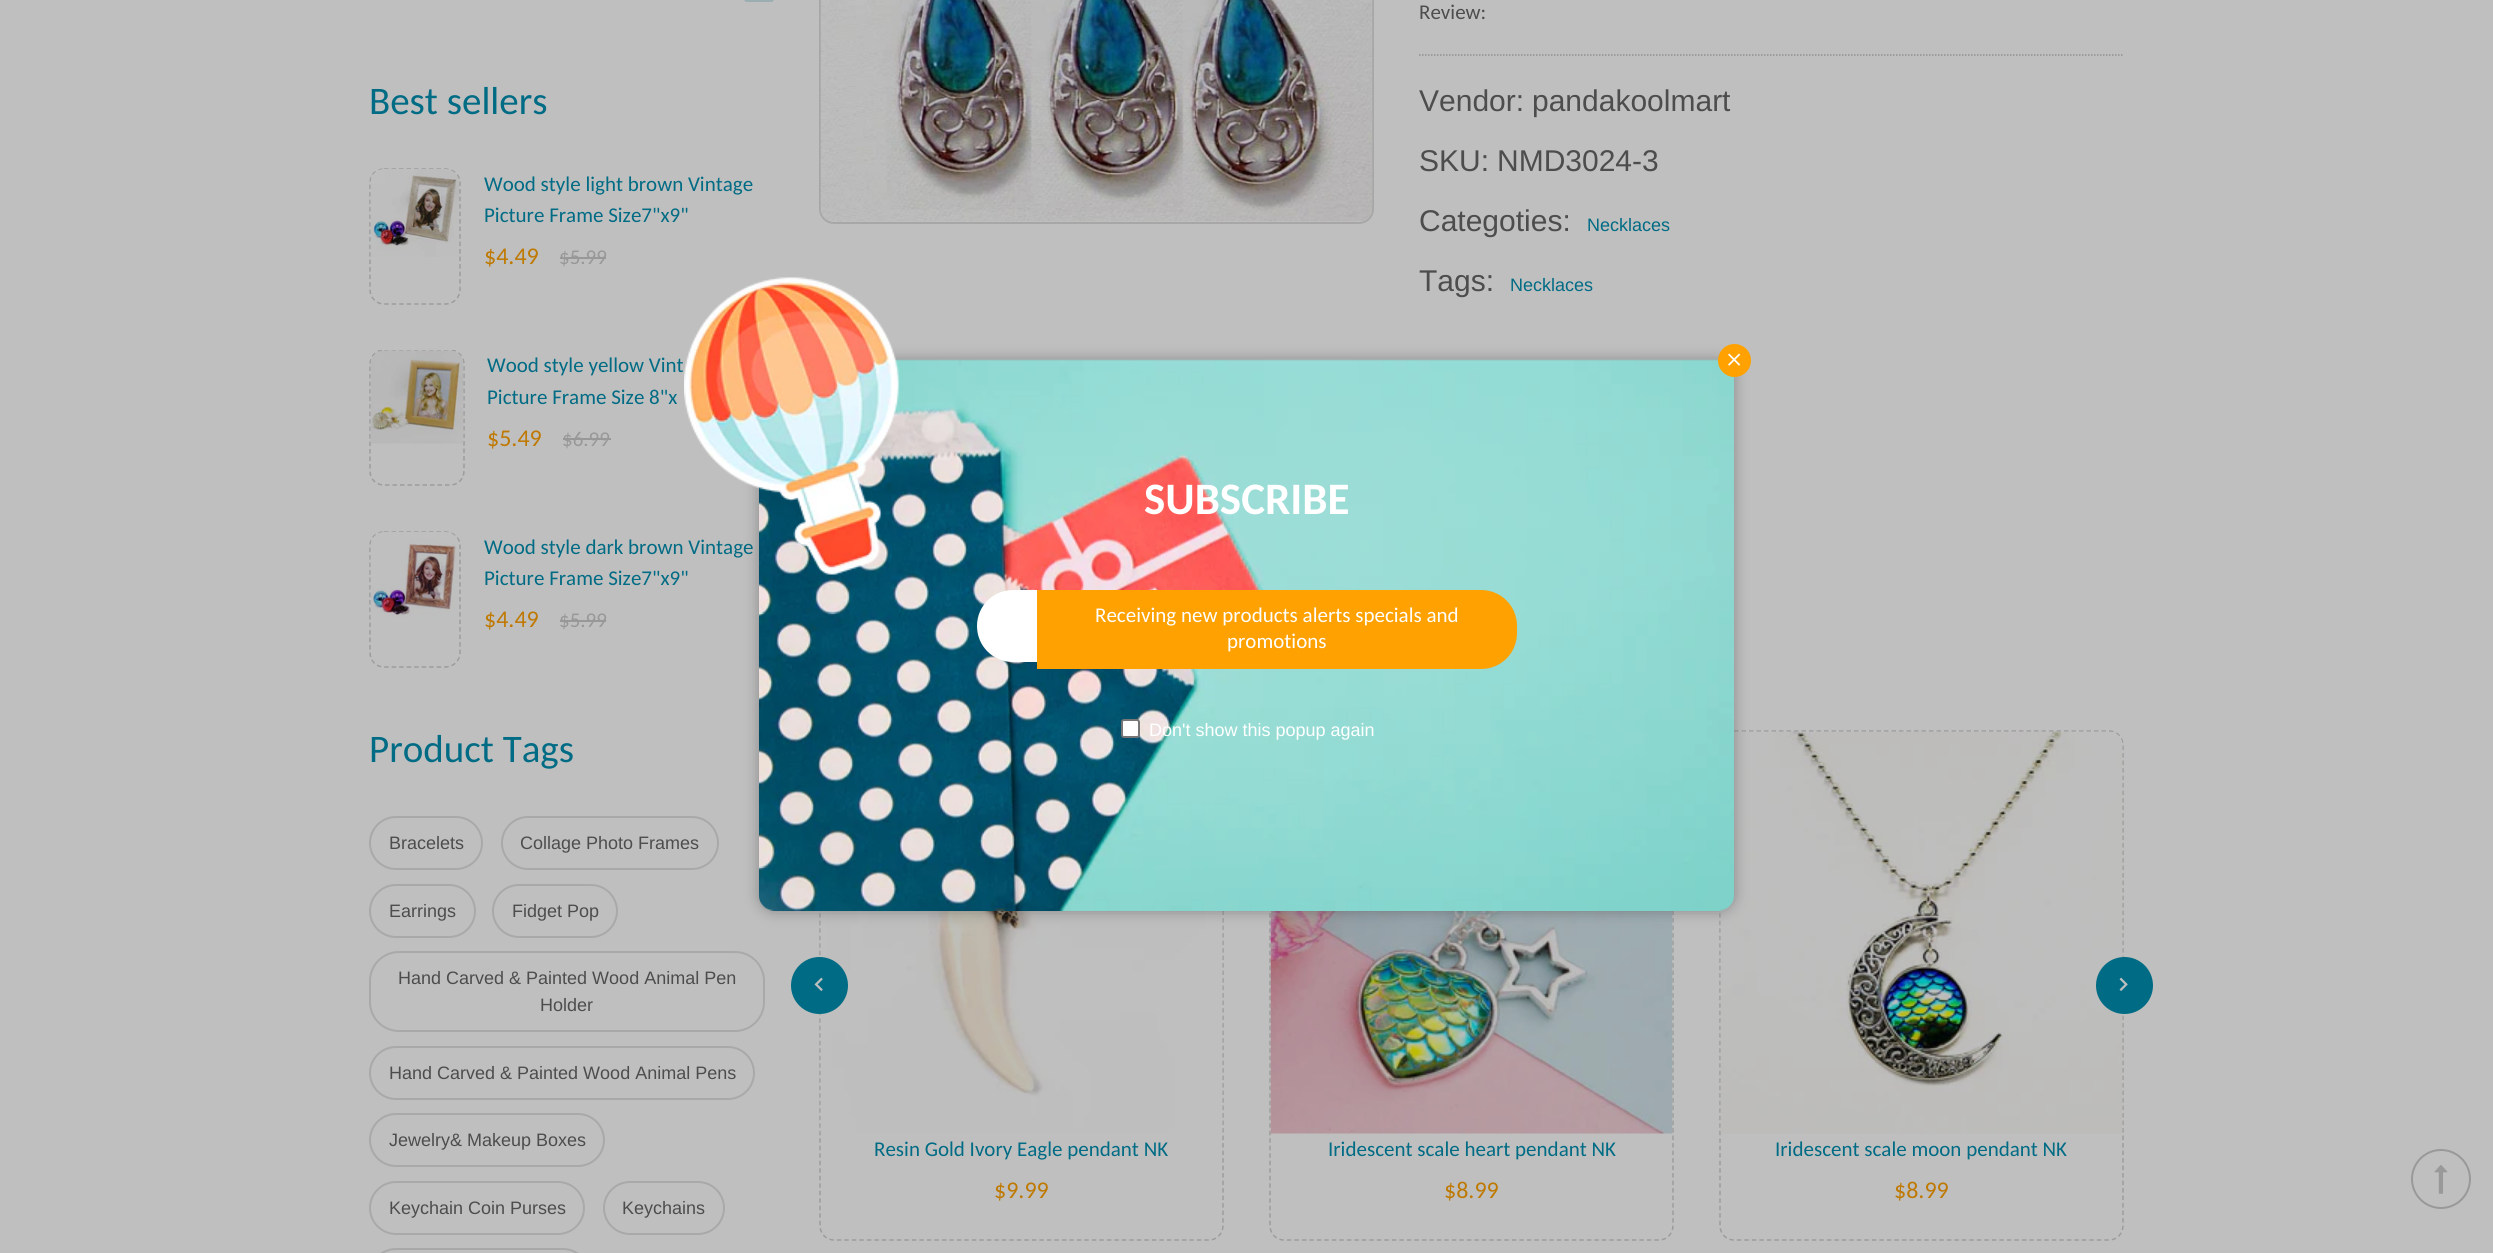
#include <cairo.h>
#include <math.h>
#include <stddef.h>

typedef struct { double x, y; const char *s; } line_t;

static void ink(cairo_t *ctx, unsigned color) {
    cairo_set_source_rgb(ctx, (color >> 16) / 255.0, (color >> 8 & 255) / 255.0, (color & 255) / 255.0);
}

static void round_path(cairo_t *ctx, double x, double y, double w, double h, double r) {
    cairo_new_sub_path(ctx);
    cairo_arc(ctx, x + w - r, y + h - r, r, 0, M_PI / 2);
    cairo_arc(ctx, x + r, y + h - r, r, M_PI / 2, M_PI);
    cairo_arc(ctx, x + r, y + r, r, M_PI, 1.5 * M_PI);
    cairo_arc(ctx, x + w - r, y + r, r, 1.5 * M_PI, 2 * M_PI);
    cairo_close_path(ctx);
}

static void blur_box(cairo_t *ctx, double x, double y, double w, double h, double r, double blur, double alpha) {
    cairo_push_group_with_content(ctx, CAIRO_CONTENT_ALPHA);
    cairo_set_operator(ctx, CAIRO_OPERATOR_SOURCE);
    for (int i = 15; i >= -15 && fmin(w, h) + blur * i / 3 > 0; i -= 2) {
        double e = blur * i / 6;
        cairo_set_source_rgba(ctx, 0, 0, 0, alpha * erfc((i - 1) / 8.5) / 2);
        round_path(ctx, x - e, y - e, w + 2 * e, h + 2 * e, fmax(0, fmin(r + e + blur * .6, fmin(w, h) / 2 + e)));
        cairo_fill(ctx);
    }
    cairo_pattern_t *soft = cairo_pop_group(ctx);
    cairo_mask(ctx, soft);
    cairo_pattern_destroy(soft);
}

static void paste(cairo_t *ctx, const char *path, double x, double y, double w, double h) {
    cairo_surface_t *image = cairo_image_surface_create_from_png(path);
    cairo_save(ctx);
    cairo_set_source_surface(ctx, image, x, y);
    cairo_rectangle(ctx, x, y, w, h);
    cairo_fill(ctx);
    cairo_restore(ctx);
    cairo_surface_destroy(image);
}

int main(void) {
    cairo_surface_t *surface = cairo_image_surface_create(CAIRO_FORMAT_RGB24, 2493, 1253);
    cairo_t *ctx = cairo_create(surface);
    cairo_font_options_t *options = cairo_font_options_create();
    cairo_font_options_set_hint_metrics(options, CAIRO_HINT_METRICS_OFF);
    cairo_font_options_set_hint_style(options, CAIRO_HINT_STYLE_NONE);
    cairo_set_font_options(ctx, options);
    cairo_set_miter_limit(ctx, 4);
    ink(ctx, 0xBFBFBF);
    cairo_paint(ctx);
    ink(ctx, 0x9BAFB3);
    round_path(ctx, 744, -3, 30, 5, 3);
    cairo_fill(ctx);
    cairo_select_font_face(ctx, "Carlito", CAIRO_FONT_SLANT_NORMAL, CAIRO_FONT_WEIGHT_NORMAL);
    cairo_set_font_size(ctx, 39);
    ink(ctx, 0x006B84);
    cairo_move_to(ctx, 369, 114);
    cairo_show_text(ctx, "Best sellers");
    cairo_new_path(ctx);
    cairo_move_to(ctx, 384, 169);
    cairo_line_to(ctx, 445.5, 169);
    cairo_curve_to(ctx, 453.5, 169, 460, 175, 460, 183);
    cairo_line_to(ctx, 460, 289.5);
    cairo_curve_to(ctx, 460, 297.5, 453.5, 304, 445.5, 304);
    cairo_line_to(ctx, 384, 304);
    cairo_curve_to(ctx, 376, 304, 370, 297.5, 370, 289.5);
    cairo_line_to(ctx, 370, 183);
    cairo_curve_to(ctx, 370, 175, 376, 169, 384, 169);
    cairo_close_path(ctx);
    ink(ctx, 0x9C9C9C);
    cairo_set_line_width(ctx, 1.5);
    cairo_set_dash(ctx, (double[]){4.5, 3}, 2, 0);
    cairo_stroke(ctx);
    paste(ctx, "media/1.png", 370, 169, 89, 88);
    cairo_set_font_size(ctx, 21);
    ink(ctx, 0x006B84);
    cairo_move_to(ctx, 484, 191);
    cairo_show_text(ctx, "Wood style light brown Vintage");
    cairo_move_to(ctx, 484, 222);
    cairo_show_text(ctx, "Picture Frame Size7\"x9\"");
    cairo_set_font_size(ctx, 24);
    ink(ctx, 0xBF7900);
    cairo_move_to(ctx, 484, 264);
    cairo_show_text(ctx, "$4.49");
    cairo_set_font_size(ctx, 21);
    ink(ctx, 0x989898);
    cairo_move_to(ctx, 559, 264);
    cairo_show_text(ctx, "$5.99");
    cairo_rectangle(ctx, 560, 257, 46, 2);
    cairo_fill(ctx);
    cairo_save(ctx);
    cairo_rectangle(ctx, 369, 350, 405, 136);
    cairo_clip(ctx);
    cairo_new_path(ctx);
    cairo_move_to(ctx, 384, 350);
    cairo_line_to(ctx, 450, 350);
    cairo_curve_to(ctx, 458, 350, 464, 356.5, 464, 364.5);
    cairo_line_to(ctx, 464, 471);
    cairo_curve_to(ctx, 464, 479, 458, 485, 450, 485);
    cairo_line_to(ctx, 384, 485);
    cairo_curve_to(ctx, 376, 485, 370, 479, 370, 471);
    cairo_line_to(ctx, 370, 364.5);
    cairo_curve_to(ctx, 370, 356.5, 376, 350, 384, 350);
    cairo_close_path(ctx);
    ink(ctx, 0x9C9C9C);
    cairo_stroke(ctx);
    cairo_restore(ctx);
    paste(ctx, "media/2.png", 370, 350, 94, 94);
    ink(ctx, 0x006B84);
    cairo_move_to(ctx, 487, 372);
    cairo_show_text(ctx, "Wood style yellow Vint");
    cairo_move_to(ctx, 487, 404);
    cairo_show_text(ctx, "Picture Frame Size 8\"x");
    cairo_set_font_size(ctx, 24);
    ink(ctx, 0xBF7900);
    cairo_move_to(ctx, 487, 446);
    cairo_show_text(ctx, "$5.49");
    cairo_set_font_size(ctx, 21);
    ink(ctx, 0x989898);
    cairo_move_to(ctx, 562, 446);
    cairo_show_text(ctx, "$6.99");
    cairo_rectangle(ctx, 563, 438, 48, 2);
    cairo_fill(ctx);
    cairo_new_path(ctx);
    cairo_move_to(ctx, 384, 532);
    cairo_line_to(ctx, 445.5, 532);
    cairo_curve_to(ctx, 453.5, 532, 460, 538, 460, 546);
    cairo_line_to(ctx, 460, 652.5);
    cairo_curve_to(ctx, 460, 660.5, 453.5, 667, 445.5, 667);
    cairo_line_to(ctx, 384, 667);
    cairo_curve_to(ctx, 376, 667, 370, 660.5, 370, 652.5);
    cairo_line_to(ctx, 370, 546);
    cairo_curve_to(ctx, 370, 538, 376, 532, 384, 532);
    cairo_close_path(ctx);
    ink(ctx, 0x9C9C9C);
    cairo_stroke(ctx);
    paste(ctx, "media/3.png", 370, 532, 89, 88);
    ink(ctx, 0x006B84);
    cairo_move_to(ctx, 484, 554);
    cairo_show_text(ctx, "Wood style dark brown Vintage");
    cairo_move_to(ctx, 484, 585);
    cairo_show_text(ctx, "Picture Frame Size7\"x9\"");
    cairo_set_font_size(ctx, 24);
    ink(ctx, 0xBF7900);
    cairo_move_to(ctx, 484, 627);
    cairo_show_text(ctx, "$4.49");
    cairo_set_font_size(ctx, 21);
    ink(ctx, 0x989898);
    cairo_move_to(ctx, 559, 627);
    cairo_show_text(ctx, "$5.99");
    cairo_rectangle(ctx, 560, 620, 46, 2);
    cairo_fill(ctx);
    cairo_set_font_size(ctx, 39);
    ink(ctx, 0x006B84);
    cairo_move_to(ctx, 369, 762);
    cairo_show_text(ctx, "Product Tags");
    round_path(ctx, 370, 817, 112, 52, 26);
    ink(ctx, 0xA9A9A9);
    cairo_set_line_width(ctx, 2);
    cairo_set_dash(ctx, NULL, 0, 0);
    cairo_stroke(ctx);
    cairo_select_font_face(ctx, "Liberation Sans", CAIRO_FONT_SLANT_NORMAL, CAIRO_FONT_WEIGHT_NORMAL);
    cairo_set_font_size(ctx, 18);
    ink(ctx, 0x4D4D4D);
    cairo_move_to(ctx, 389, 849);
    cairo_show_text(ctx, "Bracelets");
    round_path(ctx, 502, 817, 216, 52, 26);
    ink(ctx, 0xA9A9A9);
    cairo_stroke(ctx);
    ink(ctx, 0x4D4D4D);
    cairo_move_to(ctx, 520, 849);
    cairo_show_text(ctx, "Collage Photo Frames");
    round_path(ctx, 370, 885, 105, 52, 26);
    ink(ctx, 0xA9A9A9);
    cairo_stroke(ctx);
    ink(ctx, 0x4D4D4D);
    cairo_move_to(ctx, 389, 917);
    cairo_show_text(ctx, "Earrings");
    round_path(ctx, 493, 885, 124, 52, 26);
    ink(ctx, 0xA9A9A9);
    cairo_stroke(ctx);
    ink(ctx, 0x4D4D4D);
    cairo_move_to(ctx, 512, 917);
    cairo_show_text(ctx, "Fidget Pop");
    round_path(ctx, 370, 952, 394, 79, 29);
    ink(ctx, 0xA9A9A9);
    cairo_stroke(ctx);
    ink(ctx, 0x4D4D4D);
    cairo_move_to(ctx, 398, 984);
    cairo_show_text(ctx, "Hand Carved & Painted Wood Animal Pen");
    cairo_move_to(ctx, 540, 1011);
    cairo_show_text(ctx, "Holder");
    round_path(ctx, 370, 1047, 384, 52, 26);
    ink(ctx, 0xA9A9A9);
    cairo_stroke(ctx);
    ink(ctx, 0x4D4D4D);
    cairo_move_to(ctx, 389, 1079);
    cairo_show_text(ctx, "Hand Carved & Painted Wood Animal Pens");
    round_path(ctx, 370, 1114, 234, 52, 26);
    ink(ctx, 0xA9A9A9);
    cairo_stroke(ctx);
    ink(ctx, 0x4D4D4D);
    cairo_move_to(ctx, 389, 1146);
    cairo_show_text(ctx, "Jewelry& Makeup Boxes");
    round_path(ctx, 370, 1182, 214, 52, 26);
    ink(ctx, 0xA9A9A9);
    cairo_stroke(ctx);
    ink(ctx, 0x4D4D4D);
    cairo_move_to(ctx, 389, 1214);
    cairo_show_text(ctx, "Keychain Coin Purses");
    round_path(ctx, 604, 1182, 120, 52, 26);
    ink(ctx, 0xA9A9A9);
    cairo_stroke(ctx);
    ink(ctx, 0x4D4D4D);
    cairo_move_to(ctx, 622, 1214);
    cairo_show_text(ctx, "Keychains");
    round_path(ctx, 370, 1249, 219, 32, 26);
    ink(ctx, 0xA9A9A9);
    cairo_stroke(ctx);
    round_path(ctx, 820, -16, 553, 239, 14);
    ink(ctx, 0xA7A7A7);
    cairo_stroke(ctx);
    paste(ctx, "media/4.png", 820, 0, 553, 222);
    cairo_select_font_face(ctx, "Carlito", CAIRO_FONT_SLANT_NORMAL, CAIRO_FONT_WEIGHT_NORMAL);
    cairo_set_font_size(ctx, 21);
    ink(ctx, 0x4D4D4D);
    cairo_move_to(ctx, 1419, 19);
    cairo_show_text(ctx, "Review:");
    cairo_new_path(ctx);
    cairo_move_to(ctx, 1419, 55);
    cairo_line_to(ctx, 2124, 55);
    ink(ctx, 0x909090);
    cairo_set_line_width(ctx, 1.5);
    cairo_set_dash(ctx, (double[]){1.5, 1.5}, 2, 0);
    cairo_stroke(ctx);
    cairo_select_font_face(ctx, "Liberation Sans", CAIRO_FONT_SLANT_NORMAL, CAIRO_FONT_WEIGHT_NORMAL);
    cairo_set_font_size(ctx, 30);
    ink(ctx, 0x4D4D4D);
    {
        static const line_t items[] = {
            {1419, 111, "Vendor:"},
            {1532, 111, "pandakoolmart"},
            {1419, 171, "SKU:"},
            {1497, 171, "NMD3024-3"},
            {1419, 231, "Categoties:"},
        };
        for (size_t i = 0; i < sizeof items / sizeof *items; i++) {
            cairo_move_to(ctx, items[i].x, items[i].y);
            cairo_show_text(ctx, items[i].s);
        }
    }
    cairo_set_font_size(ctx, 18);
    ink(ctx, 0x006B84);
    cairo_move_to(ctx, 1587, 231);
    cairo_show_text(ctx, "Necklaces");
    cairo_set_font_size(ctx, 30);
    ink(ctx, 0x4D4D4D);
    cairo_move_to(ctx, 1419, 291);
    cairo_show_text(ctx, "Tags:");
    cairo_set_font_size(ctx, 18);
    ink(ctx, 0x006B84);
    cairo_move_to(ctx, 1510, 291);
    cairo_show_text(ctx, "Necklaces");
    cairo_new_path(ctx);
    cairo_move_to(ctx, 834, 731);
    cairo_line_to(ctx, 1209, 731);
    cairo_curve_to(ctx, 1217, 731, 1223, 737.5, 1223, 745.5);
    cairo_line_to(ctx, 1223, 1225.5);
    cairo_curve_to(ctx, 1223, 1233.5, 1217, 1240, 1209, 1240);
    cairo_line_to(ctx, 834, 1240);
    cairo_curve_to(ctx, 826, 1240, 820, 1233.5, 820, 1225.5);
    cairo_line_to(ctx, 820, 745.5);
    cairo_curve_to(ctx, 820, 737.5, 826, 731, 834, 731);
    cairo_close_path(ctx);
    ink(ctx, 0x9C9C9C);
    cairo_set_dash(ctx, (double[]){4.5, 3}, 2, 0);
    cairo_stroke(ctx);
    paste(ctx, "media/7.png", 820, 911, 403, 223);
    ink(ctx, 0x006B84);
    cairo_arc(ctx, 819.5, 985.5, 28.5, 0, 2 * M_PI);
    cairo_fill(ctx);
    paste(ctx, "media/5.png", 814, 977, 9, 14);
    cairo_new_path(ctx);
    cairo_move_to(ctx, 1734, 731);
    cairo_line_to(ctx, 2109, 731);
    cairo_curve_to(ctx, 2117, 731, 2123, 737.5, 2123, 745.5);
    cairo_line_to(ctx, 2123, 1225.5);
    cairo_curve_to(ctx, 2123, 1233.5, 2117, 1240, 2109, 1240);
    cairo_line_to(ctx, 1734, 1240);
    cairo_curve_to(ctx, 1726, 1240, 1720, 1233.5, 1720, 1225.5);
    cairo_line_to(ctx, 1720, 745.5);
    cairo_curve_to(ctx, 1720, 737.5, 1726, 731, 1734, 731);
    cairo_close_path(ctx);
    ink(ctx, 0x9C9C9C);
    cairo_stroke(ctx);
    paste(ctx, "media/9.png", 1720, 731, 403, 403);
    ink(ctx, 0x006B84);
    cairo_arc(ctx, 2124.5, 985.5, 28.5, 0, 2 * M_PI);
    cairo_fill(ctx);
    paste(ctx, "media/6.png", 2119, 977, 9, 14);
    cairo_select_font_face(ctx, "Carlito", CAIRO_FONT_SLANT_NORMAL, CAIRO_FONT_WEIGHT_NORMAL);
    cairo_set_font_size(ctx, 21);
    cairo_move_to(ctx, 874, 1156);
    cairo_show_text(ctx, "Resin Gold Ivory Eagle pendant NK");
    cairo_set_font_size(ctx, 24);
    ink(ctx, 0xBF7900);
    cairo_move_to(ctx, 994, 1198);
    cairo_show_text(ctx, "$9.99");
    cairo_new_path(ctx);
    cairo_move_to(ctx, 1284, 731);
    cairo_line_to(ctx, 1659, 731);
    cairo_curve_to(ctx, 1667, 731, 1673, 737.5, 1673, 745.5);
    cairo_line_to(ctx, 1673, 1225.5);
    cairo_curve_to(ctx, 1673, 1233.5, 1667, 1240, 1659, 1240);
    cairo_line_to(ctx, 1284, 1240);
    cairo_curve_to(ctx, 1276, 1240, 1270, 1233.5, 1270, 1225.5);
    cairo_line_to(ctx, 1270, 745.5);
    cairo_curve_to(ctx, 1270, 737.5, 1276, 731, 1284, 731);
    cairo_close_path(ctx);
    ink(ctx, 0x9C9C9C);
    cairo_stroke(ctx);
    paste(ctx, "media/8.png", 1270, 911, 403, 223);
    cairo_set_font_size(ctx, 21);
    ink(ctx, 0x006B84);
    cairo_move_to(ctx, 1328, 1156);
    cairo_show_text(ctx, "Iridescent scale heart pendant NK");
    cairo_set_font_size(ctx, 24);
    ink(ctx, 0xBF7900);
    cairo_move_to(ctx, 1444, 1198);
    cairo_show_text(ctx, "$8.99");
    cairo_set_font_size(ctx, 21);
    ink(ctx, 0x006B84);
    cairo_move_to(ctx, 1775, 1156);
    cairo_show_text(ctx, "Iridescent scale moon pendant NK");
    cairo_set_font_size(ctx, 24);
    ink(ctx, 0xBF7900);
    cairo_move_to(ctx, 1894, 1198);
    cairo_show_text(ctx, "$8.99");
    ink(ctx, 0x222222);
    blur_box(ctx, 759, 360, 975, 551, 15, 7.5, 0.35);
    paste(ctx, "media/10.png", 759, 359, 975, 552);
    ink(ctx, 0xFFA100);
    cairo_arc(ctx, 1734.5, 360.5, 16.5, 0, 2 * M_PI);
    cairo_fill(ctx);
    paste(ctx, "media/11.png", 1728, 353, 13, 13);
    paste(ctx, "media/12.png", 684, 277, 216, 298);
    cairo_select_font_face(ctx, "Carlito", CAIRO_FONT_SLANT_NORMAL, CAIRO_FONT_WEIGHT_BOLD);
    cairo_set_font_size(ctx, 45);
    ink(ctx, 0xFFFFFF);
    cairo_move_to(ctx, 1144, 514);
    cairo_show_text(ctx, "SUBSCRIBE");
    cairo_new_path(ctx);
    cairo_move_to(ctx, 1013, 590);
    cairo_line_to(ctx, 1037, 590);
    cairo_line_to(ctx, 1037, 662);
    cairo_line_to(ctx, 1013, 662);
    cairo_curve_to(ctx, 993, 662, 977, 646, 977, 626);
    cairo_curve_to(ctx, 977, 606, 993, 590, 1013, 590);
    cairo_close_path(ctx);
    cairo_fill(ctx);
    ink(ctx, 0xFFA100);
    cairo_new_path(ctx);
    cairo_move_to(ctx, 1038, 591);
    cairo_line_to(ctx, 1481, 591);
    cairo_curve_to(ctx, 1500.5, 591, 1516, 606.5, 1516, 626);
    cairo_line_to(ctx, 1516, 633);
    cairo_curve_to(ctx, 1516, 652.5, 1500.5, 668, 1481, 668);
    cairo_line_to(ctx, 1038, 668);
    cairo_close_path(ctx);
    cairo_fill_preserve(ctx);
    cairo_set_line_width(ctx, 2);
    cairo_set_dash(ctx, NULL, 0, 0);
    cairo_stroke(ctx);
    cairo_select_font_face(ctx, "Carlito", CAIRO_FONT_SLANT_NORMAL, CAIRO_FONT_WEIGHT_NORMAL);
    cairo_set_font_size(ctx, 21);
    ink(ctx, 0xFFFFFF);
    cairo_move_to(ctx, 1095, 622);
    cairo_show_text(ctx, "Receiving new products alerts specials and");
    cairo_move_to(ctx, 1227, 648);
    cairo_show_text(ctx, "promotions");
    round_path(ctx, 1122, 720, 17, 17, 2);
    cairo_fill_preserve(ctx);
    ink(ctx, 0x767676);
    cairo_stroke(ctx);
    cairo_select_font_face(ctx, "Liberation Sans", CAIRO_FONT_SLANT_NORMAL, CAIRO_FONT_WEIGHT_NORMAL);
    cairo_set_font_size(ctx, 18);
    ink(ctx, 0xFFFFFF);
    cairo_move_to(ctx, 1149, 736);
    cairo_show_text(ctx, "Don't show this popup again");
    cairo_new_path(ctx);
    cairo_arc(ctx, 2441, 1179, 29, 0, 2 * M_PI);
    ink(ctx, 0x999999);
    cairo_stroke(ctx);
    paste(ctx, "media/13.png", 2434, 1165, 14, 29);
    cairo_surface_write_to_png(surface, "image.png");
    cairo_font_options_destroy(options);
    cairo_destroy(ctx);
    cairo_surface_destroy(surface);
    return 0;
}
